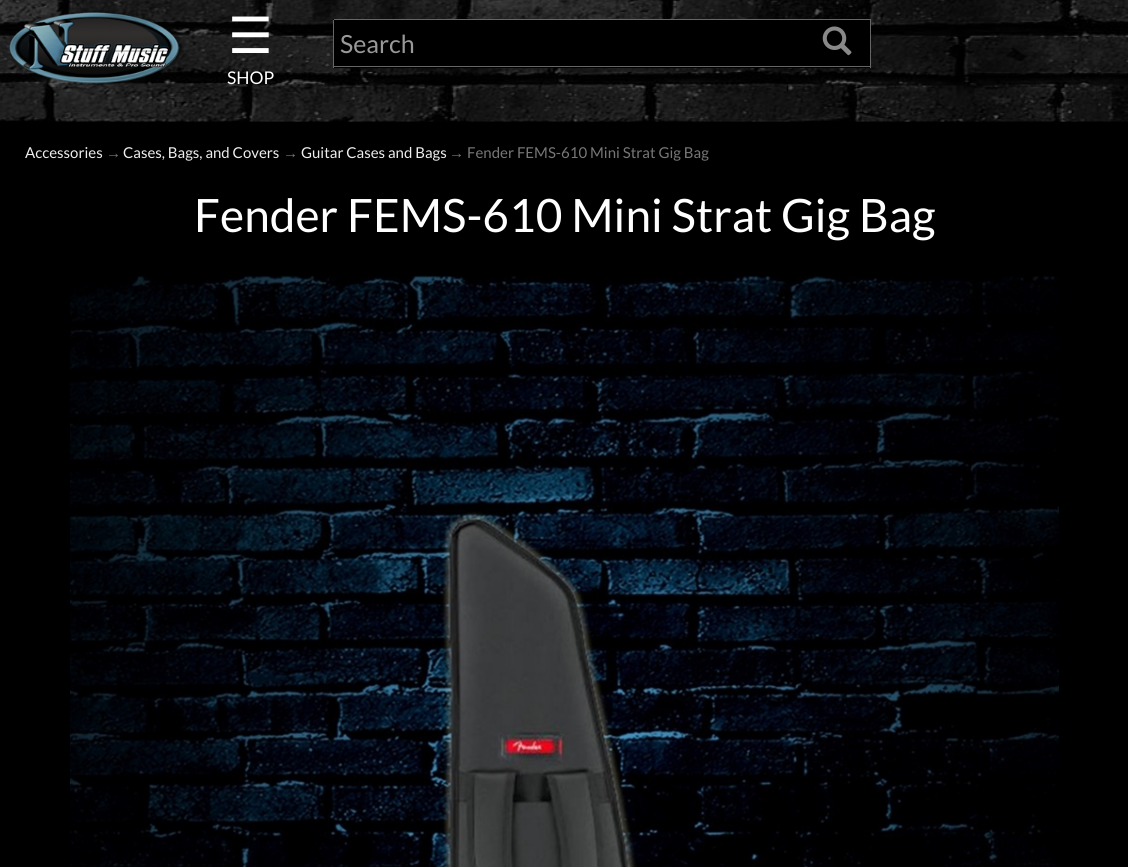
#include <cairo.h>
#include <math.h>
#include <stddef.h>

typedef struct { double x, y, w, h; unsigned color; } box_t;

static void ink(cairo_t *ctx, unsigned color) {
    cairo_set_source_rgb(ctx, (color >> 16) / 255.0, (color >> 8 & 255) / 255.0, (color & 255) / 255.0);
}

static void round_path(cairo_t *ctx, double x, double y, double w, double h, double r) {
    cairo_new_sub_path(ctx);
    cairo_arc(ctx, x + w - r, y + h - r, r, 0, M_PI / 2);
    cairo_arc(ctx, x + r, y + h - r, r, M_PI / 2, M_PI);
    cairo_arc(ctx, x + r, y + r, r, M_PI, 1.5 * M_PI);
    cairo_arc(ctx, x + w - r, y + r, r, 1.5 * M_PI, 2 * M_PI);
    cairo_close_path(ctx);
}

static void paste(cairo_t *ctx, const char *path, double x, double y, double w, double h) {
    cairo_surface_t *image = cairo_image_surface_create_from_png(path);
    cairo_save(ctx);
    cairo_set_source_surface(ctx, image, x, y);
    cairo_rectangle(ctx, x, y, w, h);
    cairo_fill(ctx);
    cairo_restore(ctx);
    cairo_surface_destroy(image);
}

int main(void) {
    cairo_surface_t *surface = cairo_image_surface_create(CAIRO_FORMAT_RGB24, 1128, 867);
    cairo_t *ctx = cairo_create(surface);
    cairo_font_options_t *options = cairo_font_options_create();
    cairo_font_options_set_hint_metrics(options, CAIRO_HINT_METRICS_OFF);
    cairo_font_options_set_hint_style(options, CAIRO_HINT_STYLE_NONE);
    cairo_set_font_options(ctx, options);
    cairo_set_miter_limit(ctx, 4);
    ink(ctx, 0x000000);
    cairo_paint(ctx);
    paste(ctx, "media/1.png", 0, 0, 1128, 122);
    paste(ctx, "media/2.png", 9, 10, 175, 75);
    cairo_select_font_face(ctx, "DejaVu Sans", CAIRO_FONT_SLANT_NORMAL, CAIRO_FONT_WEIGHT_NORMAL);
    cairo_set_font_size(ctx, 50);
    ink(ctx, 0xFFFFFF);
    cairo_move_to(ctx, 228, 53);
    cairo_show_text(ctx, "☰");
    cairo_select_font_face(ctx, "Lato", CAIRO_FONT_SLANT_NORMAL, CAIRO_FONT_WEIGHT_NORMAL);
    cairo_set_font_size(ctx, 17.5);
    cairo_move_to(ctx, 227, 84);
    cairo_show_text(ctx, "SHOP");
    ink(ctx, 0x000000);
    round_path(ctx, 333, 19, 471, 49, 1);
    cairo_fill(ctx);
    {
        static const box_t items[] = {
            {334, 19, 537, 1, 0x666666},
            {334, 66, 470, 1, 0x666666},
            {333, 20, 1, 48, 0x666666},
        };
        for (size_t i = 0; i < sizeof items / sizeof *items; i++) {
            ink(ctx, items[i].color);
            cairo_rectangle(ctx, items[i].x, items[i].y, items[i].w, items[i].h);
            cairo_fill(ctx);
        }
    }
    cairo_set_font_size(ctx, 25);
    ink(ctx, 0x999999);
    cairo_move_to(ctx, 340, 53);
    cairo_show_text(ctx, "Search");
    {
        static const box_t items[] = {
            {804, 20, 66, 48, 0x000000},
            {870, 19, 1, 49, 0x666666},
            {804, 66, 67, 1, 0x666666},
        };
        for (size_t i = 0; i < sizeof items / sizeof *items; i++) {
            ink(ctx, items[i].color);
            cairo_rectangle(ctx, items[i].x, items[i].y, items[i].w, items[i].h);
            cairo_fill(ctx);
        }
    }
    paste(ctx, "media/3.png", 822, 26, 30, 30);
    cairo_set_font_size(ctx, 15);
    ink(ctx, 0xEEEEEE);
    cairo_move_to(ctx, 25, 158);
    cairo_show_text(ctx, "Accessories");
    cairo_select_font_face(ctx, "Liberation Sans", CAIRO_FONT_SLANT_NORMAL, CAIRO_FONT_WEIGHT_NORMAL);
    ink(ctx, 0x777777);
    cairo_move_to(ctx, 106, 158);
    cairo_show_text(ctx, "→");
    cairo_select_font_face(ctx, "Lato", CAIRO_FONT_SLANT_NORMAL, CAIRO_FONT_WEIGHT_NORMAL);
    ink(ctx, 0xEEEEEE);
    cairo_move_to(ctx, 123, 158);
    cairo_show_text(ctx, "Cases, Bags, and Covers");
    cairo_select_font_face(ctx, "Liberation Sans", CAIRO_FONT_SLANT_NORMAL, CAIRO_FONT_WEIGHT_NORMAL);
    ink(ctx, 0x777777);
    cairo_move_to(ctx, 283, 158);
    cairo_show_text(ctx, "→");
    cairo_select_font_face(ctx, "Lato", CAIRO_FONT_SLANT_NORMAL, CAIRO_FONT_WEIGHT_NORMAL);
    ink(ctx, 0xEEEEEE);
    cairo_move_to(ctx, 301, 158);
    cairo_show_text(ctx, "Guitar Cases and Bags");
    cairo_select_font_face(ctx, "Liberation Sans", CAIRO_FONT_SLANT_NORMAL, CAIRO_FONT_WEIGHT_NORMAL);
    ink(ctx, 0x777777);
    cairo_move_to(ctx, 449, 158);
    cairo_show_text(ctx, "→");
    cairo_select_font_face(ctx, "Lato", CAIRO_FONT_SLANT_NORMAL, CAIRO_FONT_WEIGHT_NORMAL);
    cairo_move_to(ctx, 467, 158);
    cairo_show_text(ctx, "Fender FEMS-610 Mini Strat Gig Bag");
    cairo_set_font_size(ctx, 46);
    ink(ctx, 0xFFFFFF);
    cairo_move_to(ctx, 194, 232);
    cairo_show_text(ctx, "Fender FEMS-610 Mini Strat Gig Bag");
    paste(ctx, "media/4.png", 70, 275, 989, 592);
    cairo_surface_write_to_png(surface, "image.png");
    cairo_font_options_destroy(options);
    cairo_destroy(ctx);
    cairo_surface_destroy(surface);
    return 0;
}
